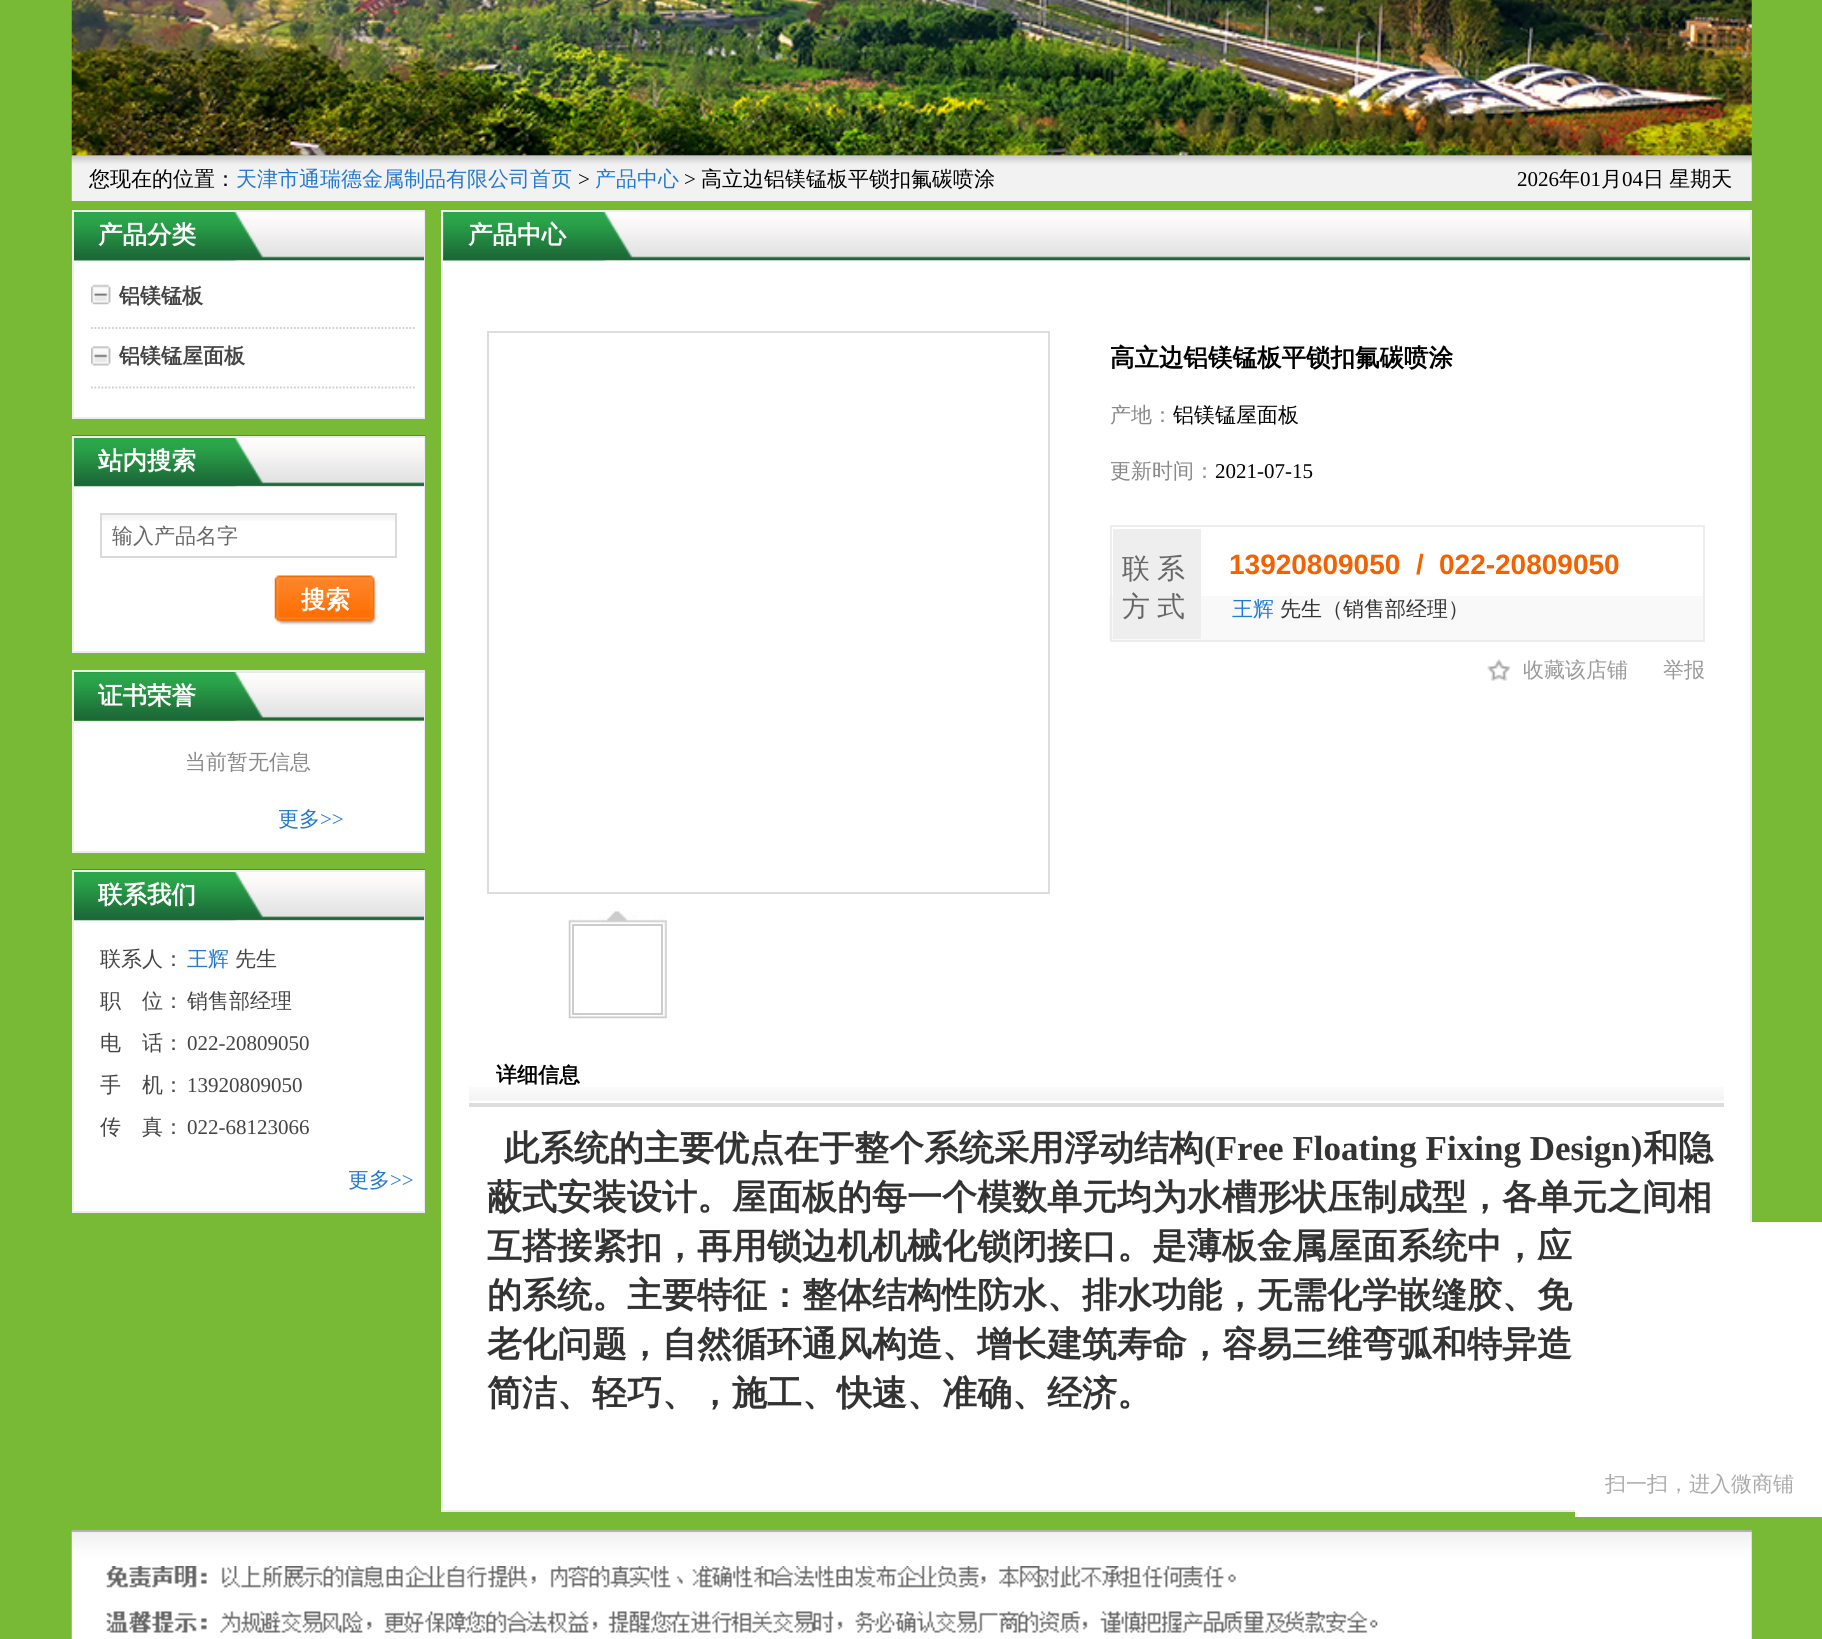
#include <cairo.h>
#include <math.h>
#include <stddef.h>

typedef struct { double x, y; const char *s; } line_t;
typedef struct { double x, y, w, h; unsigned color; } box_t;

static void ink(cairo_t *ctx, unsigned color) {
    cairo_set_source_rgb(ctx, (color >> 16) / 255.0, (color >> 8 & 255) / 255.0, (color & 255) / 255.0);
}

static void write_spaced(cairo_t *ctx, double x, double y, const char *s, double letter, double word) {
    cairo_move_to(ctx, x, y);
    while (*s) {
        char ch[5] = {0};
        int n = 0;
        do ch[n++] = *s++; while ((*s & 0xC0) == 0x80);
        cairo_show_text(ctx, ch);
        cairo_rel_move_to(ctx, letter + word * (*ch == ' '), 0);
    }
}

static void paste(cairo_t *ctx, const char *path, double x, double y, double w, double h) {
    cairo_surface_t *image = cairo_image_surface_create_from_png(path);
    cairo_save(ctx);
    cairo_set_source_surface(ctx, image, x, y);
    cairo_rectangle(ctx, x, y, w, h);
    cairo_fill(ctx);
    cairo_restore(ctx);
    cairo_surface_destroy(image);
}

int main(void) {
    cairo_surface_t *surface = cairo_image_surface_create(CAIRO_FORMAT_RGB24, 1822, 1639);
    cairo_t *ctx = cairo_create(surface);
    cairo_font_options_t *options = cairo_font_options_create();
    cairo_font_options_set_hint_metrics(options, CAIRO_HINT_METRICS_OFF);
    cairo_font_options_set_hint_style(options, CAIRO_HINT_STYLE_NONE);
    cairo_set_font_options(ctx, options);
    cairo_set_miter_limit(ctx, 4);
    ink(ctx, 0x78BA36);
    cairo_paint(ctx);
    paste(ctx, "media/1.png", 71, 0, 1681, 156);
    paste(ctx, "media/2.png", 71, 155, 1681, 46);
    cairo_select_font_face(ctx, "WenQuanYi Zen Hei Medium", CAIRO_FONT_SLANT_NORMAL, CAIRO_FONT_WEIGHT_NORMAL);
    cairo_set_font_size(ctx, 21);
    ink(ctx, 0x000000);
    cairo_move_to(ctx, 89, 186);
    cairo_show_text(ctx, "您现在的位置：");
    ink(ctx, 0x2379D1);
    cairo_move_to(ctx, 236, 186);
    cairo_show_text(ctx, "天津市通瑞德金属制品有限公司首页");
    cairo_select_font_face(ctx, "Liberation Serif", CAIRO_FONT_SLANT_NORMAL, CAIRO_FONT_WEIGHT_NORMAL);
    ink(ctx, 0x000000);
    cairo_move_to(ctx, 578, 186);
    cairo_show_text(ctx, ">");
    cairo_select_font_face(ctx, "WenQuanYi Zen Hei Medium", CAIRO_FONT_SLANT_NORMAL, CAIRO_FONT_WEIGHT_NORMAL);
    ink(ctx, 0x2379D1);
    cairo_move_to(ctx, 595, 186);
    cairo_show_text(ctx, "产品中心");
    cairo_select_font_face(ctx, "Liberation Serif", CAIRO_FONT_SLANT_NORMAL, CAIRO_FONT_WEIGHT_NORMAL);
    ink(ctx, 0x000000);
    cairo_move_to(ctx, 684, 186);
    cairo_show_text(ctx, ">");
    cairo_select_font_face(ctx, "WenQuanYi Zen Hei Medium", CAIRO_FONT_SLANT_NORMAL, CAIRO_FONT_WEIGHT_NORMAL);
    cairo_move_to(ctx, 701, 186);
    cairo_show_text(ctx, "高立边铝镁锰板平锁扣氟碳喷涂");
    cairo_select_font_face(ctx, "Liberation Serif", CAIRO_FONT_SLANT_NORMAL, CAIRO_FONT_WEIGHT_NORMAL);
    cairo_move_to(ctx, 1517, 186);
    cairo_show_text(ctx, "2026");
    cairo_select_font_face(ctx, "WenQuanYi Zen Hei Medium", CAIRO_FONT_SLANT_NORMAL, CAIRO_FONT_WEIGHT_NORMAL);
    cairo_move_to(ctx, 1559, 186);
    cairo_show_text(ctx, "年");
    cairo_select_font_face(ctx, "Liberation Serif", CAIRO_FONT_SLANT_NORMAL, CAIRO_FONT_WEIGHT_NORMAL);
    cairo_move_to(ctx, 1580, 186);
    cairo_show_text(ctx, "01");
    cairo_select_font_face(ctx, "WenQuanYi Zen Hei Medium", CAIRO_FONT_SLANT_NORMAL, CAIRO_FONT_WEIGHT_NORMAL);
    cairo_move_to(ctx, 1601, 186);
    cairo_show_text(ctx, "月");
    cairo_select_font_face(ctx, "Liberation Serif", CAIRO_FONT_SLANT_NORMAL, CAIRO_FONT_WEIGHT_NORMAL);
    cairo_move_to(ctx, 1622, 186);
    cairo_show_text(ctx, "04");
    cairo_select_font_face(ctx, "WenQuanYi Zen Hei Medium", CAIRO_FONT_SLANT_NORMAL, CAIRO_FONT_WEIGHT_NORMAL);
    write_spaced(ctx, 1643, 186, "日 星期天", 0, -1);
    ink(ctx, 0xF1F1F1);
    cairo_rectangle(ctx, 74, 260, 350, 1);
    cairo_fill(ctx);
    paste(ctx, "media/3.png", 71, 209, 355, 52);
    {
        static const box_t items[] = {
            {72, 210, 353, 2, 0xEDEDED},
            {424, 210, 1, 208, 0xEDEDED},
            {72, 210, 2, 51, 0xEDEDED},
        };
        for (size_t i = 0; i < sizeof items / sizeof *items; i++) {
            ink(ctx, items[i].color);
            cairo_rectangle(ctx, items[i].x, items[i].y, items[i].w, items[i].h);
            cairo_fill(ctx);
        }
    }
    cairo_select_font_face(ctx, "WenQuanYi Zen Hei", CAIRO_FONT_SLANT_NORMAL, CAIRO_FONT_WEIGHT_BOLD);
    cairo_set_font_size(ctx, 24.5);
    ink(ctx, 0xFFFFFF);
    cairo_move_to(ctx, 98, 243);
    cairo_show_text(ctx, "产品分类");
    {
        static const box_t items[] = {
            {74, 261, 350, 156, 0xFFFFFF},
            {72, 417, 353, 2, 0xEDEDED},
            {72, 261, 2, 157, 0xEDEDED},
        };
        for (size_t i = 0; i < sizeof items / sizeof *items; i++) {
            ink(ctx, items[i].color);
            cairo_rectangle(ctx, items[i].x, items[i].y, items[i].w, items[i].h);
            cairo_fill(ctx);
        }
    }
    cairo_new_path(ctx);
    cairo_move_to(ctx, 91, 328);
    cairo_line_to(ctx, 415, 328);
    ink(ctx, 0xCBCBCB);
    cairo_set_line_width(ctx, 1.8);
    cairo_set_dash(ctx, (double[]){1.75, 1.75}, 2, 0);
    cairo_stroke(ctx);
    paste(ctx, "media/4.png", 91, 284, 20, 21);
    cairo_set_font_size(ctx, 21);
    ink(ctx, 0x444444);
    cairo_move_to(ctx, 119, 303);
    cairo_show_text(ctx, "铝镁锰板");
    cairo_new_path(ctx);
    cairo_move_to(ctx, 91, 387.5);
    cairo_line_to(ctx, 415, 387.5);
    ink(ctx, 0xCBCBCB);
    cairo_stroke(ctx);
    paste(ctx, "media/5.png", 91, 346, 20, 20);
    ink(ctx, 0x444444);
    cairo_move_to(ctx, 119, 363);
    cairo_show_text(ctx, "铝镁锰屋面板");
    ink(ctx, 0xF1F1F1);
    cairo_rectangle(ctx, 74, 486, 350, 1);
    cairo_fill(ctx);
    paste(ctx, "media/6.png", 71, 435, 355, 52);
    {
        static const box_t items[] = {
            {72, 436, 353, 2, 0xEDEDED},
            {424, 436, 1, 217, 0xEDEDED},
            {72, 436, 2, 51, 0xEDEDED},
        };
        for (size_t i = 0; i < sizeof items / sizeof *items; i++) {
            ink(ctx, items[i].color);
            cairo_rectangle(ctx, items[i].x, items[i].y, items[i].w, items[i].h);
            cairo_fill(ctx);
        }
    }
    cairo_set_font_size(ctx, 24.5);
    ink(ctx, 0xFFFFFF);
    cairo_move_to(ctx, 98, 469);
    cairo_show_text(ctx, "站内搜索");
    {
        static const box_t items[] = {
            {74, 487, 350, 164, 0xFFFFFF},
            {72, 651, 353, 2, 0xEDEDED},
            {72, 487, 2, 166, 0xEDEDED},
        };
        for (size_t i = 0; i < sizeof items / sizeof *items; i++) {
            ink(ctx, items[i].color);
            cairo_rectangle(ctx, items[i].x, items[i].y, items[i].w, items[i].h);
            cairo_fill(ctx);
        }
    }
    paste(ctx, "media/7.png", 102, 515, 293, 6);
    cairo_rectangle(ctx, 101, 514, 295, 43);
    ink(ctx, 0xDADADA);
    cairo_set_line_width(ctx, 2);
    cairo_set_dash(ctx, NULL, 0, 0);
    cairo_stroke(ctx);
    cairo_select_font_face(ctx, "WenQuanYi Zen Hei Medium", CAIRO_FONT_SLANT_NORMAL, CAIRO_FONT_WEIGHT_NORMAL);
    cairo_set_font_size(ctx, 21);
    ink(ctx, 0x666666);
    cairo_move_to(ctx, 112, 543);
    cairo_show_text(ctx, "输入产品名字");
    paste(ctx, "media/8.png", 274, 575, 103, 50);
    cairo_select_font_face(ctx, "WenQuanYi Zen Hei", CAIRO_FONT_SLANT_NORMAL, CAIRO_FONT_WEIGHT_BOLD);
    cairo_set_font_size(ctx, 24.5);
    ink(ctx, 0xFFFFFF);
    cairo_move_to(ctx, 301, 608);
    cairo_show_text(ctx, "搜索");
    paste(ctx, "media/9.png", 71, 670, 355, 51);
    {
        static const box_t items[] = {
            {72, 670, 353, 2, 0xEDEDED},
            {424, 670, 1, 182, 0xEDEDED},
            {72, 670, 2, 51, 0xEDEDED},
        };
        for (size_t i = 0; i < sizeof items / sizeof *items; i++) {
            ink(ctx, items[i].color);
            cairo_rectangle(ctx, items[i].x, items[i].y, items[i].w, items[i].h);
            cairo_fill(ctx);
        }
    }
    ink(ctx, 0xFFFFFF);
    cairo_move_to(ctx, 98, 704);
    cairo_show_text(ctx, "证书荣誉");
    {
        static const box_t items[] = {
            {74, 721, 350, 130, 0xFFFFFF},
            {72, 851, 353, 2, 0xEDEDED},
            {72, 721, 2, 131, 0xEDEDED},
        };
        for (size_t i = 0; i < sizeof items / sizeof *items; i++) {
            ink(ctx, items[i].color);
            cairo_rectangle(ctx, items[i].x, items[i].y, items[i].w, items[i].h);
            cairo_fill(ctx);
        }
    }
    cairo_select_font_face(ctx, "WenQuanYi Zen Hei Medium", CAIRO_FONT_SLANT_NORMAL, CAIRO_FONT_WEIGHT_NORMAL);
    cairo_set_font_size(ctx, 21);
    ink(ctx, 0x888888);
    cairo_move_to(ctx, 185, 769);
    cairo_show_text(ctx, "当前暂无信息");
    ink(ctx, 0x2379D1);
    cairo_move_to(ctx, 278, 826);
    cairo_show_text(ctx, "更多");
    cairo_select_font_face(ctx, "Liberation Serif", CAIRO_FONT_SLANT_NORMAL, CAIRO_FONT_WEIGHT_NORMAL);
    cairo_move_to(ctx, 320, 826);
    cairo_show_text(ctx, ">>");
    ink(ctx, 0xF1F1F1);
    cairo_rectangle(ctx, 74, 920, 350, 1);
    cairo_fill(ctx);
    paste(ctx, "media/10.png", 71, 869, 355, 52);
    {
        static const box_t items[] = {
            {72, 870, 353, 2, 0xEDEDED},
            {424, 870, 1, 343, 0xEDEDED},
            {72, 870, 2, 51, 0xEDEDED},
        };
        for (size_t i = 0; i < sizeof items / sizeof *items; i++) {
            ink(ctx, items[i].color);
            cairo_rectangle(ctx, items[i].x, items[i].y, items[i].w, items[i].h);
            cairo_fill(ctx);
        }
    }
    cairo_select_font_face(ctx, "WenQuanYi Zen Hei", CAIRO_FONT_SLANT_NORMAL, CAIRO_FONT_WEIGHT_BOLD);
    cairo_set_font_size(ctx, 24.5);
    ink(ctx, 0xFFFFFF);
    cairo_move_to(ctx, 98, 903);
    cairo_show_text(ctx, "联系我们");
    {
        static const box_t items[] = {
            {74, 921, 350, 290, 0xFFFFFF},
            {72, 1211, 353, 2, 0xEDEDED},
            {72, 921, 2, 292, 0xEDEDED},
        };
        for (size_t i = 0; i < sizeof items / sizeof *items; i++) {
            ink(ctx, items[i].color);
            cairo_rectangle(ctx, items[i].x, items[i].y, items[i].w, items[i].h);
            cairo_fill(ctx);
        }
    }
    cairo_select_font_face(ctx, "WenQuanYi Zen Hei Medium", CAIRO_FONT_SLANT_NORMAL, CAIRO_FONT_WEIGHT_NORMAL);
    cairo_set_font_size(ctx, 21);
    ink(ctx, 0x444444);
    cairo_move_to(ctx, 100, 966);
    cairo_show_text(ctx, "联系人：");
    ink(ctx, 0x2379D1);
    cairo_move_to(ctx, 187, 966);
    cairo_show_text(ctx, "王辉");
    ink(ctx, 0x444444);
    {
        static const line_t items[] = {
            {235, 966, "先生"},
            {100, 1008, "职"},
            {142, 1008, "位："},
            {187, 1008, "销售部经理"},
            {100, 1050, "电"},
            {142, 1050, "话："},
        };
        for (size_t i = 0; i < sizeof items / sizeof *items; i++) {
            cairo_move_to(ctx, items[i].x, items[i].y);
            cairo_show_text(ctx, items[i].s);
        }
    }
    cairo_select_font_face(ctx, "Liberation Serif", CAIRO_FONT_SLANT_NORMAL, CAIRO_FONT_WEIGHT_NORMAL);
    cairo_move_to(ctx, 187, 1050);
    cairo_show_text(ctx, "022-20809050");
    cairo_select_font_face(ctx, "WenQuanYi Zen Hei Medium", CAIRO_FONT_SLANT_NORMAL, CAIRO_FONT_WEIGHT_NORMAL);
    cairo_move_to(ctx, 100, 1092);
    cairo_show_text(ctx, "手");
    cairo_move_to(ctx, 142, 1092);
    cairo_show_text(ctx, "机：");
    cairo_select_font_face(ctx, "Liberation Serif", CAIRO_FONT_SLANT_NORMAL, CAIRO_FONT_WEIGHT_NORMAL);
    cairo_move_to(ctx, 187, 1092);
    cairo_show_text(ctx, "13920809050");
    cairo_select_font_face(ctx, "WenQuanYi Zen Hei Medium", CAIRO_FONT_SLANT_NORMAL, CAIRO_FONT_WEIGHT_NORMAL);
    cairo_move_to(ctx, 100, 1134);
    cairo_show_text(ctx, "传");
    cairo_move_to(ctx, 142, 1134);
    cairo_show_text(ctx, "真：");
    cairo_select_font_face(ctx, "Liberation Serif", CAIRO_FONT_SLANT_NORMAL, CAIRO_FONT_WEIGHT_NORMAL);
    cairo_move_to(ctx, 187, 1134);
    cairo_show_text(ctx, "022-68123066");
    cairo_select_font_face(ctx, "WenQuanYi Zen Hei Medium", CAIRO_FONT_SLANT_NORMAL, CAIRO_FONT_WEIGHT_NORMAL);
    ink(ctx, 0x2379D1);
    cairo_move_to(ctx, 348, 1187);
    cairo_show_text(ctx, "更多");
    cairo_select_font_face(ctx, "Liberation Serif", CAIRO_FONT_SLANT_NORMAL, CAIRO_FONT_WEIGHT_NORMAL);
    cairo_move_to(ctx, 390, 1187);
    cairo_show_text(ctx, ">>");
    ink(ctx, 0xF1F1F1);
    cairo_rectangle(ctx, 443, 260, 1307, 1);
    cairo_fill(ctx);
    paste(ctx, "media/11.png", 441, 209, 1311, 52);
    {
        static const box_t items[] = {
            {441, 210, 1311, 2, 0xEDEDED},
            {1750, 210, 2, 1012, 0xEDEDED},
            {441, 210, 2, 51, 0xEDEDED},
        };
        for (size_t i = 0; i < sizeof items / sizeof *items; i++) {
            ink(ctx, items[i].color);
            cairo_rectangle(ctx, items[i].x, items[i].y, items[i].w, items[i].h);
            cairo_fill(ctx);
        }
    }
    cairo_select_font_face(ctx, "WenQuanYi Zen Hei", CAIRO_FONT_SLANT_NORMAL, CAIRO_FONT_WEIGHT_BOLD);
    cairo_set_font_size(ctx, 24.5);
    ink(ctx, 0xFFFFFF);
    cairo_move_to(ctx, 468, 243);
    cairo_show_text(ctx, "产品中心");
    {
        static const box_t items[] = {
            {443, 261, 1307, 1249, 0xFFFFFF},
            {441, 1510, 1134, 2, 0xEDEDED},
            {441, 261, 2, 1251, 0xEDEDED},
        };
        for (size_t i = 0; i < sizeof items / sizeof *items; i++) {
            ink(ctx, items[i].color);
            cairo_rectangle(ctx, items[i].x, items[i].y, items[i].w, items[i].h);
            cairo_fill(ctx);
        }
    }
    cairo_rectangle(ctx, 488, 332, 561, 561);
    ink(ctx, 0xDDDDDD);
    cairo_stroke(ctx);
    paste(ctx, "media/12.png", 568, 911, 99, 108);
    cairo_rectangle(ctx, 573, 925, 89, 89);
    ink(ctx, 0xCCCCCC);
    cairo_stroke(ctx);
    ink(ctx, 0x000000);
    cairo_move_to(ctx, 1110, 366);
    cairo_show_text(ctx, "高立边铝镁锰板平锁扣氟碳喷涂");
    cairo_select_font_face(ctx, "WenQuanYi Zen Hei Medium", CAIRO_FONT_SLANT_NORMAL, CAIRO_FONT_WEIGHT_NORMAL);
    cairo_set_font_size(ctx, 21);
    ink(ctx, 0x888888);
    cairo_move_to(ctx, 1110, 422);
    cairo_show_text(ctx, "产地：");
    ink(ctx, 0x000000);
    cairo_move_to(ctx, 1173, 422);
    cairo_show_text(ctx, "铝镁锰屋面板");
    ink(ctx, 0x888888);
    cairo_move_to(ctx, 1110, 478);
    cairo_show_text(ctx, "更新时间：");
    cairo_select_font_face(ctx, "Liberation Serif", CAIRO_FONT_SLANT_NORMAL, CAIRO_FONT_WEIGHT_NORMAL);
    ink(ctx, 0x000000);
    cairo_move_to(ctx, 1215, 478);
    cairo_show_text(ctx, "2021-07-15");
    ink(ctx, 0xF9F9F9);
    cairo_rectangle(ctx, 1109, 596, 594, 44);
    cairo_fill(ctx);
    cairo_rectangle(ctx, 1111, 526, 593, 115);
    ink(ctx, 0xEDEDED);
    cairo_stroke(ctx);
    ink(ctx, 0xEEEEEE);
    cairo_rectangle(ctx, 1113, 529, 88, 110);
    cairo_fill(ctx);
    cairo_select_font_face(ctx, "WenQuanYi Zen Hei Medium", CAIRO_FONT_SLANT_NORMAL, CAIRO_FONT_WEIGHT_NORMAL);
    cairo_set_font_size(ctx, 28);
    ink(ctx, 0x666666);
    write_spaced(ctx, 1122, 578, "联系", 7, 0);
    write_spaced(ctx, 1122, 616, "方式", 7, 0);
    cairo_select_font_face(ctx, "Liberation Sans", CAIRO_FONT_SLANT_NORMAL, CAIRO_FONT_WEIGHT_BOLD);
    ink(ctx, 0xF46200);
    {
        static const line_t items[] = {
            {1229, 574, "13920809050"},
            {1416, 574, "/"},
            {1439, 574, "022-20809050"},
        };
        for (size_t i = 0; i < sizeof items / sizeof *items; i++) {
            cairo_move_to(ctx, items[i].x, items[i].y);
            cairo_show_text(ctx, items[i].s);
        }
    }
    cairo_select_font_face(ctx, "WenQuanYi Zen Hei Medium", CAIRO_FONT_SLANT_NORMAL, CAIRO_FONT_WEIGHT_NORMAL);
    cairo_set_font_size(ctx, 21);
    ink(ctx, 0x2379D1);
    cairo_move_to(ctx, 1232, 616);
    cairo_show_text(ctx, "王辉");
    ink(ctx, 0x333333);
    cairo_move_to(ctx, 1280, 616);
    cairo_show_text(ctx, "先生（销售部经理）");
    paste(ctx, "media/13.png", 1487, 659, 24, 22);
    ink(ctx, 0x999999);
    cairo_move_to(ctx, 1523, 677);
    cairo_show_text(ctx, "收藏该店铺");
    cairo_move_to(ctx, 1663, 677);
    cairo_show_text(ctx, "举报");
    paste(ctx, "media/14.png", 469, 1087, 1255, 14);
    ink(ctx, 0xDDDDDD);
    cairo_rectangle(ctx, 469, 1103, 1255, 4);
    cairo_fill(ctx);
    cairo_select_font_face(ctx, "WenQuanYi Zen Hei", CAIRO_FONT_SLANT_NORMAL, CAIRO_FONT_WEIGHT_BOLD);
    ink(ctx, 0x000000);
    cairo_move_to(ctx, 496, 1082);
    cairo_show_text(ctx, "详细信息");
    cairo_set_font_size(ctx, 35);
    ink(ctx, 0x333333);
    cairo_move_to(ctx, 504, 1160);
    cairo_show_text(ctx, "此系统的主要优点在于整个系统采用浮动结构");
    cairo_select_font_face(ctx, "Liberation Serif", CAIRO_FONT_SLANT_NORMAL, CAIRO_FONT_WEIGHT_BOLD);
    cairo_move_to(ctx, 1204, 1160);
    cairo_show_text(ctx, "(Free Floating Fixing Design)");
    cairo_select_font_face(ctx, "WenQuanYi Zen Hei", CAIRO_FONT_SLANT_NORMAL, CAIRO_FONT_WEIGHT_BOLD);
    {
        static const line_t items[] = {
            {1643, 1160, "和隐"},
            {487, 1209, "蔽式安装设计。屋面板的每一个模数单元均为水槽形状压制成型，各单元之间相"},
            {487, 1258, "互搭接紧扣，再用锁边机机械化锁闭接口。是薄板金属屋面系统中，应"},
            {487, 1307, "的系统。主要特征：整体结构性防水、排水功能，无需化学嵌缝胶、免"},
            {487, 1356, "老化问题，自然循环通风构造、增长建筑寿命，容易三维弯弧和特异造"},
            {487, 1405, "简洁、轻巧、，施工、快速、准确、经济。"},
        };
        for (size_t i = 0; i < sizeof items / sizeof *items; i++) {
            cairo_move_to(ctx, items[i].x, items[i].y);
            cairo_show_text(ctx, items[i].s);
        }
    }
    ink(ctx, 0xFFFFFF);
    cairo_rectangle(ctx, 1575, 1222, 247, 295);
    cairo_fill(ctx);
    cairo_select_font_face(ctx, "WenQuanYi Zen Hei Medium", CAIRO_FONT_SLANT_NORMAL, CAIRO_FONT_WEIGHT_NORMAL);
    cairo_set_font_size(ctx, 21);
    ink(ctx, 0xAAAAAA);
    cairo_move_to(ctx, 1605, 1491);
    cairo_show_text(ctx, "扫一扫，进入微商铺");
    paste(ctx, "media/15.png", 71, 1531, 1681, 108);
    ink(ctx, 0xB2B2B2);
    cairo_rectangle(ctx, 72, 1530, 1680, 2);
    cairo_fill(ctx);
    paste(ctx, "media/16.png", 106, 1566, 1272, 67);
    cairo_surface_write_to_png(surface, "image.png");
    cairo_font_options_destroy(options);
    cairo_destroy(ctx);
    cairo_surface_destroy(surface);
    return 0;
}
